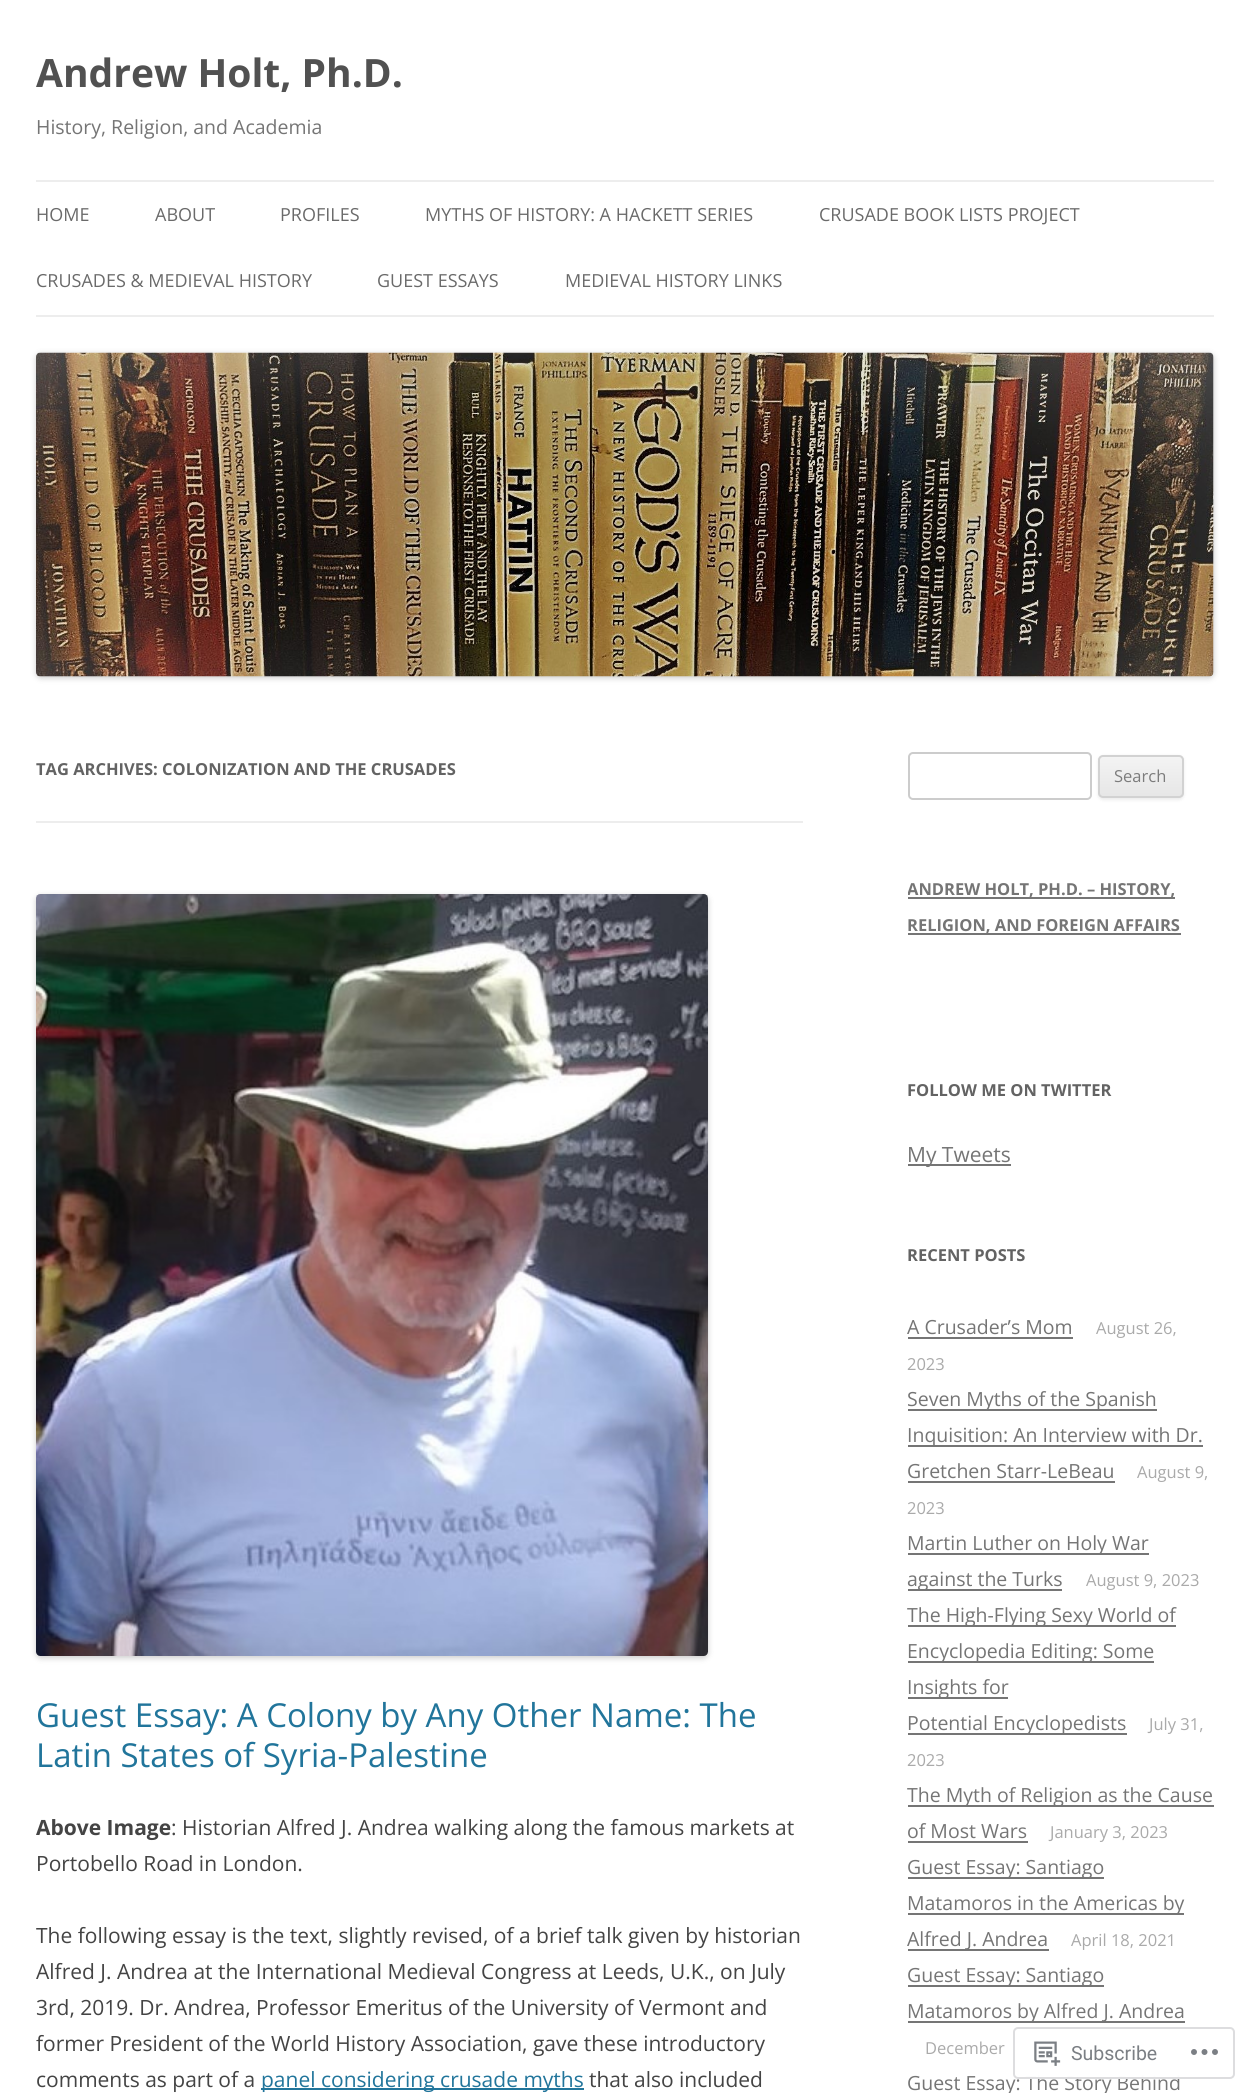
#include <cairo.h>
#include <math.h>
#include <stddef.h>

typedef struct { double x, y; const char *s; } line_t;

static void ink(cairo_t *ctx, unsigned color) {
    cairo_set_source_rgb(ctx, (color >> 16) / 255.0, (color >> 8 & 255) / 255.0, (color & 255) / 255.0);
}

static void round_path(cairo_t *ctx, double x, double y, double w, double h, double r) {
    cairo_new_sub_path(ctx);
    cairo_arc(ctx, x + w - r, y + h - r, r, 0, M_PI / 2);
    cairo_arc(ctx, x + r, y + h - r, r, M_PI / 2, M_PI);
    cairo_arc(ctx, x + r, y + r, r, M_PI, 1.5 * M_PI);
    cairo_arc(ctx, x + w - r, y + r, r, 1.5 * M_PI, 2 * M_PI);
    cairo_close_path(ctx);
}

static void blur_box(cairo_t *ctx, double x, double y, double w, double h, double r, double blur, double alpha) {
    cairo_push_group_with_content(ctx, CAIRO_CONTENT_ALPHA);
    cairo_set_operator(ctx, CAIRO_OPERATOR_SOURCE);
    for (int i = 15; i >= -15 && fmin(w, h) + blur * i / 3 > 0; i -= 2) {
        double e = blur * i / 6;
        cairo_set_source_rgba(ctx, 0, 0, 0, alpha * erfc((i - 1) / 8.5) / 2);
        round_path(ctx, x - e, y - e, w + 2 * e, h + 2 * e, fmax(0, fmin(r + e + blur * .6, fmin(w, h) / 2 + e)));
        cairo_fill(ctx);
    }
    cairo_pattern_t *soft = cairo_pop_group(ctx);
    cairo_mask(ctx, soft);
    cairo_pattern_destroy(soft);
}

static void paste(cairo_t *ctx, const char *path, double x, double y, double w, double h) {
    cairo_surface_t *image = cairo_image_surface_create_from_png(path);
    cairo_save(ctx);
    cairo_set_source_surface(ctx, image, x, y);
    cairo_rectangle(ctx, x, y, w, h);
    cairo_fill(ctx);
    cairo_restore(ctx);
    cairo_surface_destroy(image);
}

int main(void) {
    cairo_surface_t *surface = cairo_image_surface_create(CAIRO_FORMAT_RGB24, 1249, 2093);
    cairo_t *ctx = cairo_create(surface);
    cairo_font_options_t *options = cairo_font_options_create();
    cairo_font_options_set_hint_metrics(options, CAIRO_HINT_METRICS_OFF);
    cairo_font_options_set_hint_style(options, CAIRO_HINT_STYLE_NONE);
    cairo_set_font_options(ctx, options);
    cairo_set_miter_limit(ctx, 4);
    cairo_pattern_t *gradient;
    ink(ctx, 0xFFFFFF);
    cairo_paint(ctx);
    cairo_select_font_face(ctx, "Open Sans", CAIRO_FONT_SLANT_NORMAL, CAIRO_FONT_WEIGHT_BOLD);
    cairo_set_font_size(ctx, 39);
    ink(ctx, 0x515151);
    cairo_move_to(ctx, 36, 87);
    cairo_show_text(ctx, "Andrew Holt, Ph.D.");
    cairo_select_font_face(ctx, "Open Sans", CAIRO_FONT_SLANT_NORMAL, CAIRO_FONT_WEIGHT_NORMAL);
    cairo_set_font_size(ctx, 19.5);
    ink(ctx, 0x757575);
    cairo_move_to(ctx, 36, 134);
    cairo_show_text(ctx, "History, Religion, and Academia");
    ink(ctx, 0xEDEDED);
    cairo_rectangle(ctx, 36, 180, 1178, 2);
    cairo_fill(ctx);
    cairo_rectangle(ctx, 36, 315, 1178, 2);
    cairo_fill(ctx);
    cairo_set_font_size(ctx, 18);
    ink(ctx, 0x6A6A6A);
    {
        static const line_t items[] = {
            {36, 221, "HOME"},
            {155, 221, "ABOUT"},
            {280, 221, "PROFILES"},
            {425, 221, "MYTHS OF HISTORY: A HACKETT SERIES"},
            {819, 221, "CRUSADE BOOK LISTS PROJECT"},
            {36, 287, "CRUSADES & MEDIEVAL HISTORY"},
            {377, 287, "GUEST ESSAYS"},
            {565, 287, "MEDIEVAL HISTORY LINKS"},
        };
        for (size_t i = 0; i < sizeof items / sizeof *items; i++) {
            cairo_move_to(ctx, items[i].x, items[i].y);
            cairo_show_text(ctx, items[i].s);
        }
    }
    ink(ctx, 0x000000);
    blur_box(ctx, 36, 354, 1178, 324, 5, 3, 0.2);
    paste(ctx, "media/1.png", 36, 352, 1178, 325);
    ink(ctx, 0xEDEDED);
    cairo_rectangle(ctx, 36, 821, 767, 2);
    cairo_fill(ctx);
    cairo_select_font_face(ctx, "Open Sans", CAIRO_FONT_SLANT_NORMAL, CAIRO_FONT_WEIGHT_BOLD);
    cairo_set_font_size(ctx, 16.5);
    ink(ctx, 0x636363);
    cairo_move_to(ctx, 36, 775);
    cairo_show_text(ctx, "TAG ARCHIVES: COLONIZATION AND THE CRUSADES");
    ink(ctx, 0x000000);
    blur_box(ctx, 36, 896, 672, 762, 5, 3, 0.2);
    paste(ctx, "media/2.png", 36, 894, 672, 762);
    cairo_select_font_face(ctx, "Open Sans", CAIRO_FONT_SLANT_NORMAL, CAIRO_FONT_WEIGHT_NORMAL);
    cairo_set_font_size(ctx, 33);
    ink(ctx, 0x21759B);
    cairo_move_to(ctx, 36, 1727);
    cairo_show_text(ctx, "Guest Essay: A Colony by Any Other Name: The");
    cairo_move_to(ctx, 36, 1767);
    cairo_show_text(ctx, "Latin States of Syria-Palestine");
    cairo_select_font_face(ctx, "Open Sans", CAIRO_FONT_SLANT_NORMAL, CAIRO_FONT_WEIGHT_BOLD);
    cairo_set_font_size(ctx, 21);
    ink(ctx, 0x444444);
    cairo_move_to(ctx, 36, 1835);
    cairo_show_text(ctx, "Above Image");
    cairo_select_font_face(ctx, "Open Sans", CAIRO_FONT_SLANT_NORMAL, CAIRO_FONT_WEIGHT_NORMAL);
    {
        static const line_t items[] = {
            {171, 1835, ": Historian Alfred J. Andrea walking along the famous markets at"},
            {36, 1871, "Portobello Road in London."},
            {36, 1943, "The following essay is the text, slightly revised, of a brief talk given by historian"},
            {36, 1979, "Alfred J. Andrea at the International Medieval Congress at Leeds, U.K., on July"},
            {36, 2015, "3rd, 2019. Dr. Andrea, Professor Emeritus of the University of Vermont and"},
            {36, 2051, "former President of the World History Association, gave these introductory"},
            {36, 2087, "comments as part of a"},
        };
        for (size_t i = 0; i < sizeof items / sizeof *items; i++) {
            cairo_move_to(ctx, items[i].x, items[i].y);
            cairo_show_text(ctx, items[i].s);
        }
    }
    ink(ctx, 0x21759B);
    cairo_rectangle(ctx, 261, 2088, 323, 2);
    cairo_fill(ctx);
    cairo_move_to(ctx, 261, 2087);
    cairo_show_text(ctx, "panel considering crusade myths");
    ink(ctx, 0x444444);
    cairo_move_to(ctx, 589, 2087);
    cairo_show_text(ctx, "that also included");
    round_path(ctx, 909, 753, 182, 46, 4);
    ink(ctx, 0xCCCCCC);
    cairo_stroke(ctx);
    ink(ctx, 0x404040);
    blur_box(ctx, 1098, 756, 86, 44, 5, 1.5, 0.1);
    cairo_save(ctx);
    round_path(ctx, 1098, 755, 86, 43, 5);
    cairo_clip(ctx);
    gradient = cairo_pattern_create_linear(1141, 756, 1141, 797);
    cairo_pattern_add_color_stop_rgba(gradient, 0, 0.957, 0.957, 0.957, 1);
    cairo_pattern_add_color_stop_rgba(gradient, 1, 0.902, 0.902, 0.902, 1);
    cairo_set_source(ctx, gradient);
    cairo_pattern_destroy(gradient);
    cairo_rectangle(ctx, 1098, 756, 86, 41);
    cairo_fill(ctx);
    cairo_restore(ctx);
    round_path(ctx, 1099, 756, 84, 41, 4);
    ink(ctx, 0xD2D2D2);
    cairo_stroke(ctx);
    cairo_set_font_size(ctx, 16.5);
    ink(ctx, 0x7C7C7C);
    cairo_move_to(ctx, 1114, 782);
    cairo_show_text(ctx, "Search");
    ink(ctx, 0x757575);
    cairo_rectangle(ctx, 908, 897, 267, 2);
    cairo_fill(ctx);
    cairo_save(ctx);
    cairo_rectangle(ctx, 908, 872, 306, 129);
    cairo_clip(ctx);
    cairo_select_font_face(ctx, "Open Sans", CAIRO_FONT_SLANT_NORMAL, CAIRO_FONT_WEIGHT_BOLD);
    cairo_move_to(ctx, 907, 895);
    cairo_show_text(ctx, "ANDREW HOLT, PH.D. – HISTORY,");
    cairo_restore(ctx);
    cairo_rectangle(ctx, 908, 933, 273, 2);
    cairo_fill(ctx);
    cairo_select_font_face(ctx, "Open Sans", CAIRO_FONT_SLANT_NORMAL, CAIRO_FONT_WEIGHT_BOLD);
    cairo_move_to(ctx, 907, 931);
    cairo_show_text(ctx, "RELIGION, AND FOREIGN AFFAIRS");
    ink(ctx, 0x636363);
    cairo_move_to(ctx, 907, 1096);
    cairo_show_text(ctx, "FOLLOW ME ON TWITTER");
    ink(ctx, 0x757575);
    cairo_rectangle(ctx, 908, 1164, 103, 2);
    cairo_fill(ctx);
    cairo_select_font_face(ctx, "Open Sans", CAIRO_FONT_SLANT_NORMAL, CAIRO_FONT_WEIGHT_NORMAL);
    cairo_set_font_size(ctx, 21);
    cairo_move_to(ctx, 907, 1162);
    cairo_show_text(ctx, "My Tweets");
    cairo_select_font_face(ctx, "Open Sans", CAIRO_FONT_SLANT_NORMAL, CAIRO_FONT_WEIGHT_BOLD);
    cairo_set_font_size(ctx, 16.5);
    ink(ctx, 0x636363);
    cairo_move_to(ctx, 907, 1261);
    cairo_show_text(ctx, "RECENT POSTS");
    cairo_select_font_face(ctx, "Open Sans", CAIRO_FONT_SLANT_NORMAL, CAIRO_FONT_WEIGHT_NORMAL);
    cairo_set_font_size(ctx, 19.5);
    ink(ctx, 0x757575);
    cairo_move_to(ctx, 907, 1334);
    cairo_show_text(ctx, "A Crusader’s Mom");
    cairo_rectangle(ctx, 908, 1337, 165, 2);
    cairo_fill(ctx);
    cairo_set_font_size(ctx, 16.5);
    ink(ctx, 0xAAAAAA);
    cairo_move_to(ctx, 1096, 1334);
    cairo_show_text(ctx, "August 26,");
    cairo_move_to(ctx, 907, 1370);
    cairo_show_text(ctx, "2023");
    ink(ctx, 0x757575);
    cairo_rectangle(ctx, 908, 1409, 249, 2);
    cairo_fill(ctx);
    cairo_set_font_size(ctx, 19.5);
    cairo_move_to(ctx, 907, 1406);
    cairo_show_text(ctx, "Seven Myths of the Spanish");
    cairo_rectangle(ctx, 908, 1445, 295, 2);
    cairo_fill(ctx);
    cairo_move_to(ctx, 907, 1442);
    cairo_show_text(ctx, "Inquisition: An Interview with Dr.");
    cairo_move_to(ctx, 907, 1478);
    cairo_show_text(ctx, "Gretchen Starr-LeBeau");
    cairo_rectangle(ctx, 908, 1481, 207, 2);
    cairo_fill(ctx);
    cairo_set_font_size(ctx, 16.5);
    ink(ctx, 0xAAAAAA);
    cairo_move_to(ctx, 1137, 1478);
    cairo_show_text(ctx, "August 9,");
    cairo_move_to(ctx, 907, 1514);
    cairo_show_text(ctx, "2023");
    ink(ctx, 0x757575);
    cairo_rectangle(ctx, 908, 1553, 241, 2);
    cairo_fill(ctx);
    cairo_set_font_size(ctx, 19.5);
    cairo_move_to(ctx, 907, 1550);
    cairo_show_text(ctx, "Martin Luther on Holy War");
    cairo_rectangle(ctx, 908, 1589, 154, 2);
    cairo_fill(ctx);
    cairo_move_to(ctx, 907, 1586);
    cairo_show_text(ctx, "against the Turks");
    cairo_set_font_size(ctx, 16.5);
    ink(ctx, 0xAAAAAA);
    cairo_move_to(ctx, 1086, 1586);
    cairo_show_text(ctx, "August 9, 2023");
    ink(ctx, 0x757575);
    cairo_rectangle(ctx, 908, 1625, 268, 2);
    cairo_fill(ctx);
    cairo_set_font_size(ctx, 19.5);
    cairo_move_to(ctx, 907, 1622);
    cairo_show_text(ctx, "The High-Flying Sexy World of");
    cairo_rectangle(ctx, 908, 1661, 246, 2);
    cairo_fill(ctx);
    cairo_move_to(ctx, 907, 1658);
    cairo_show_text(ctx, "Encyclopedia Editing: Some");
    cairo_rectangle(ctx, 908, 1697, 100, 2);
    cairo_fill(ctx);
    cairo_move_to(ctx, 907, 1694);
    cairo_show_text(ctx, "Insights for");
    cairo_rectangle(ctx, 908, 1733, 219, 2);
    cairo_fill(ctx);
    cairo_move_to(ctx, 907, 1730);
    cairo_show_text(ctx, "Potential Encyclopedists");
    cairo_set_font_size(ctx, 16.5);
    ink(ctx, 0xAAAAAA);
    cairo_move_to(ctx, 1149, 1730);
    cairo_show_text(ctx, "July 31,");
    cairo_move_to(ctx, 907, 1766);
    cairo_show_text(ctx, "2023");
    ink(ctx, 0x757575);
    cairo_rectangle(ctx, 908, 1805, 306, 2);
    cairo_fill(ctx);
    cairo_set_font_size(ctx, 19.5);
    cairo_move_to(ctx, 907, 1802);
    cairo_show_text(ctx, "The Myth of Religion as the Cause");
    cairo_move_to(ctx, 907, 1838);
    cairo_show_text(ctx, "of Most Wars");
    cairo_rectangle(ctx, 908, 1841, 120, 2);
    cairo_fill(ctx);
    cairo_set_font_size(ctx, 16.5);
    ink(ctx, 0xAAAAAA);
    cairo_move_to(ctx, 1050, 1838);
    cairo_show_text(ctx, "January 3, 2023");
    ink(ctx, 0x757575);
    cairo_rectangle(ctx, 908, 1877, 196, 2);
    cairo_fill(ctx);
    cairo_set_font_size(ctx, 19.5);
    cairo_move_to(ctx, 907, 1874);
    cairo_show_text(ctx, "Guest Essay: Santiago");
    cairo_rectangle(ctx, 908, 1913, 276, 2);
    cairo_fill(ctx);
    cairo_move_to(ctx, 907, 1910);
    cairo_show_text(ctx, "Matamoros in the Americas by");
    cairo_rectangle(ctx, 908, 1949, 141, 2);
    cairo_fill(ctx);
    cairo_move_to(ctx, 907, 1946);
    cairo_show_text(ctx, "Alfred J. Andrea");
    cairo_set_font_size(ctx, 16.5);
    ink(ctx, 0xAAAAAA);
    cairo_move_to(ctx, 1071, 1946);
    cairo_show_text(ctx, "April 18, 2021");
    ink(ctx, 0x757575);
    cairo_rectangle(ctx, 908, 1985, 196, 2);
    cairo_fill(ctx);
    cairo_set_font_size(ctx, 19.5);
    cairo_move_to(ctx, 907, 1982);
    cairo_show_text(ctx, "Guest Essay: Santiago");
    cairo_rectangle(ctx, 908, 2021, 277, 2);
    cairo_fill(ctx);
    cairo_move_to(ctx, 907, 2018);
    cairo_show_text(ctx, "Matamoros by Alfred J. Andrea");
    cairo_set_font_size(ctx, 16.5);
    ink(ctx, 0xAAAAAA);
    cairo_move_to(ctx, 925, 2054);
    cairo_show_text(ctx, "December");
    cairo_set_font_size(ctx, 19.5);
    ink(ctx, 0x757575);
    cairo_move_to(ctx, 907, 2090);
    cairo_show_text(ctx, "Guest Essay: The Story Behind");
    cairo_set_source_rgba(ctx, 1, 1, 1, 0.98);
    round_path(ctx, 1013, 2027, 222, 52, 5);
    cairo_fill(ctx);
    round_path(ctx, 1014, 2028, 220, 50, 4);
    cairo_set_source_rgba(ctx, 0.863, 0.863, 0.871, 0.98);
    cairo_stroke(ctx);
    paste(ctx, "media/3.png", 1034, 2041, 27, 25);
    cairo_select_font_face(ctx, "Roboto", CAIRO_FONT_SLANT_NORMAL, CAIRO_FONT_WEIGHT_NORMAL);
    ink(ctx, 0x7B7F84);
    cairo_move_to(ctx, 1071, 2060);
    cairo_show_text(ctx, "Subscribe");
    paste(ctx, "media/4.png", 1191, 2049, 27, 6);
    cairo_surface_write_to_png(surface, "image.png");
    cairo_font_options_destroy(options);
    cairo_destroy(ctx);
    cairo_surface_destroy(surface);
    return 0;
}
